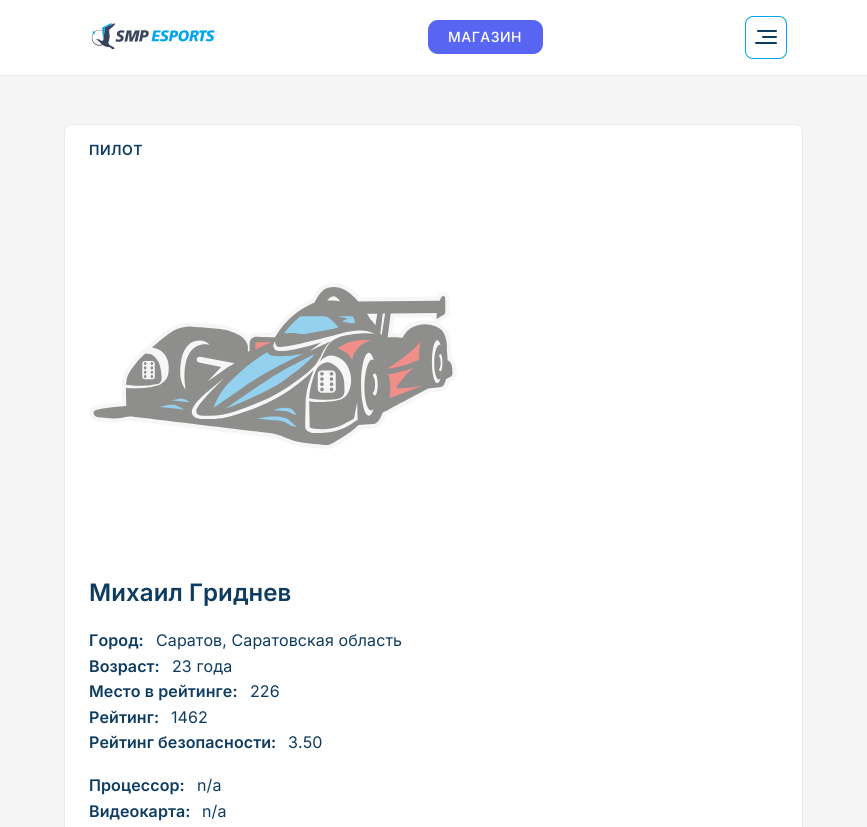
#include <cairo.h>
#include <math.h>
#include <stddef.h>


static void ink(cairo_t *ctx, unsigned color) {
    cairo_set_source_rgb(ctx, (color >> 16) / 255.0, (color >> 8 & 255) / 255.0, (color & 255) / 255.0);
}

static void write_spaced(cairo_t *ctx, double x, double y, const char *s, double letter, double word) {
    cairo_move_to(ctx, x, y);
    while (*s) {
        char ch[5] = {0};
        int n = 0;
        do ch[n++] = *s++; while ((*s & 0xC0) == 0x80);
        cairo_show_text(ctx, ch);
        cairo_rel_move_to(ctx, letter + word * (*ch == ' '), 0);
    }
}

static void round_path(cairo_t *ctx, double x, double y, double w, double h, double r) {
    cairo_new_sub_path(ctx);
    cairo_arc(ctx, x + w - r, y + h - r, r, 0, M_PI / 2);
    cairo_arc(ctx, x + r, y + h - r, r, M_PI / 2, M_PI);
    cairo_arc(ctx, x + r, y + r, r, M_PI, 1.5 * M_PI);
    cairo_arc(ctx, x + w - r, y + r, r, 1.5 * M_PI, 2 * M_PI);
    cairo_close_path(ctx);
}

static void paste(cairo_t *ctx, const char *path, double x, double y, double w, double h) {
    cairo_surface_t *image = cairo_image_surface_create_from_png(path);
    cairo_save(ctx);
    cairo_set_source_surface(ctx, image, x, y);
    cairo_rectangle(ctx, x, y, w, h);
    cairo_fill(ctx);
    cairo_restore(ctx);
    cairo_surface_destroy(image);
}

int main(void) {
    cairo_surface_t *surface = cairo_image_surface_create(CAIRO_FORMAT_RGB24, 867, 827);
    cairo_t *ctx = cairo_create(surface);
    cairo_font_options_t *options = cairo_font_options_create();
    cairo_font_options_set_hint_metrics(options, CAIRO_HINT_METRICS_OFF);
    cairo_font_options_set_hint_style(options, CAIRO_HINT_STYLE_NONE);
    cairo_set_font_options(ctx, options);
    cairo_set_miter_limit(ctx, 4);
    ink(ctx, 0xF5F5F5);
    cairo_paint(ctx);
    ink(ctx, 0xFFFFFF);
    cairo_rectangle(ctx, 0, 0, 867, 75);
    cairo_fill(ctx);
    ink(ctx, 0xEBEBEB);
    cairo_rectangle(ctx, 0, 75, 867, 1);
    cairo_fill(ctx);
    paste(ctx, "media/1.png", 91, 22, 124, 28);
    ink(ctx, 0x5865F2);
    round_path(ctx, 428, 20, 115, 34, 10);
    cairo_fill(ctx);
    cairo_select_font_face(ctx, "Inter Medium", CAIRO_FONT_SLANT_NORMAL, CAIRO_FONT_WEIGHT_NORMAL);
    cairo_set_font_size(ctx, 14);
    ink(ctx, 0xFFFFFF);
    write_spaced(ctx, 448, 42, "МАГАЗИН", 0.5, 0);
    round_path(ctx, 745.5, 16.5, 41, 42, 7.5);
    ink(ctx, 0x00A6EB);
    cairo_set_line_width(ctx, 1);
    cairo_stroke(ctx);
    paste(ctx, "media/2.png", 755, 30, 22, 14);
    ink(ctx, 0xFFFFFF);
    round_path(ctx, 64.5, 124.5, 738, 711, 7.5);
    cairo_fill_preserve(ctx);
    ink(ctx, 0xEBEBEB);
    cairo_stroke(ctx);
    cairo_select_font_face(ctx, "Inter SemiBold", CAIRO_FONT_SLANT_NORMAL, CAIRO_FONT_WEIGHT_NORMAL);
    ink(ctx, 0x0E3C61);
    write_spaced(ctx, 89, 155, "ПИЛОТ", 0.5, 0);
    paste(ctx, "media/3.png", 90, 283, 367, 166);
    cairo_set_font_size(ctx, 24);
    write_spaced(ctx, 89, 601, "Михаил Гриднев", 0.1, 0);
    cairo_set_font_size(ctx, 16);
    write_spaced(ctx, 89, 646, "Город:", 0.1, 0);
    cairo_select_font_face(ctx, "Inter", CAIRO_FONT_SLANT_NORMAL, CAIRO_FONT_WEIGHT_NORMAL);
    write_spaced(ctx, 156, 646, "Саратов, Саратовская область", 0.1, 0);
    cairo_select_font_face(ctx, "Inter SemiBold", CAIRO_FONT_SLANT_NORMAL, CAIRO_FONT_WEIGHT_NORMAL);
    write_spaced(ctx, 89, 672, "Возраст:", 0.1, 0);
    cairo_select_font_face(ctx, "Inter", CAIRO_FONT_SLANT_NORMAL, CAIRO_FONT_WEIGHT_NORMAL);
    write_spaced(ctx, 172, 672, "23 года", 0.1, 0);
    cairo_select_font_face(ctx, "Inter SemiBold", CAIRO_FONT_SLANT_NORMAL, CAIRO_FONT_WEIGHT_NORMAL);
    write_spaced(ctx, 89, 697, "Место в рейтинге:", 0.1, 0);
    cairo_select_font_face(ctx, "Inter", CAIRO_FONT_SLANT_NORMAL, CAIRO_FONT_WEIGHT_NORMAL);
    write_spaced(ctx, 250, 697, "226", 0.1, 0);
    cairo_select_font_face(ctx, "Inter SemiBold", CAIRO_FONT_SLANT_NORMAL, CAIRO_FONT_WEIGHT_NORMAL);
    write_spaced(ctx, 89, 723, "Рейтинг:", 0.1, 0);
    cairo_select_font_face(ctx, "Inter", CAIRO_FONT_SLANT_NORMAL, CAIRO_FONT_WEIGHT_NORMAL);
    write_spaced(ctx, 171, 723, "1462", 0.1, 0);
    cairo_select_font_face(ctx, "Inter SemiBold", CAIRO_FONT_SLANT_NORMAL, CAIRO_FONT_WEIGHT_NORMAL);
    write_spaced(ctx, 89, 748, "Рейтинг безопасности:", 0.1, 0);
    cairo_select_font_face(ctx, "Inter", CAIRO_FONT_SLANT_NORMAL, CAIRO_FONT_WEIGHT_NORMAL);
    write_spaced(ctx, 288, 748, "3.50", 0.1, 0);
    cairo_select_font_face(ctx, "Inter SemiBold", CAIRO_FONT_SLANT_NORMAL, CAIRO_FONT_WEIGHT_NORMAL);
    write_spaced(ctx, 89, 791, "Процессор:", 0.1, 0);
    cairo_select_font_face(ctx, "Inter", CAIRO_FONT_SLANT_NORMAL, CAIRO_FONT_WEIGHT_NORMAL);
    write_spaced(ctx, 197, 791, "n/a", 0.1, 0);
    cairo_select_font_face(ctx, "Inter SemiBold", CAIRO_FONT_SLANT_NORMAL, CAIRO_FONT_WEIGHT_NORMAL);
    write_spaced(ctx, 89, 817, "Видеокарта:", 0.1, 0);
    cairo_select_font_face(ctx, "Inter", CAIRO_FONT_SLANT_NORMAL, CAIRO_FONT_WEIGHT_NORMAL);
    write_spaced(ctx, 202, 817, "n/a", 0.1, 0);
    cairo_surface_write_to_png(surface, "image.png");
    cairo_font_options_destroy(options);
    cairo_destroy(ctx);
    cairo_surface_destroy(surface);
    return 0;
}
